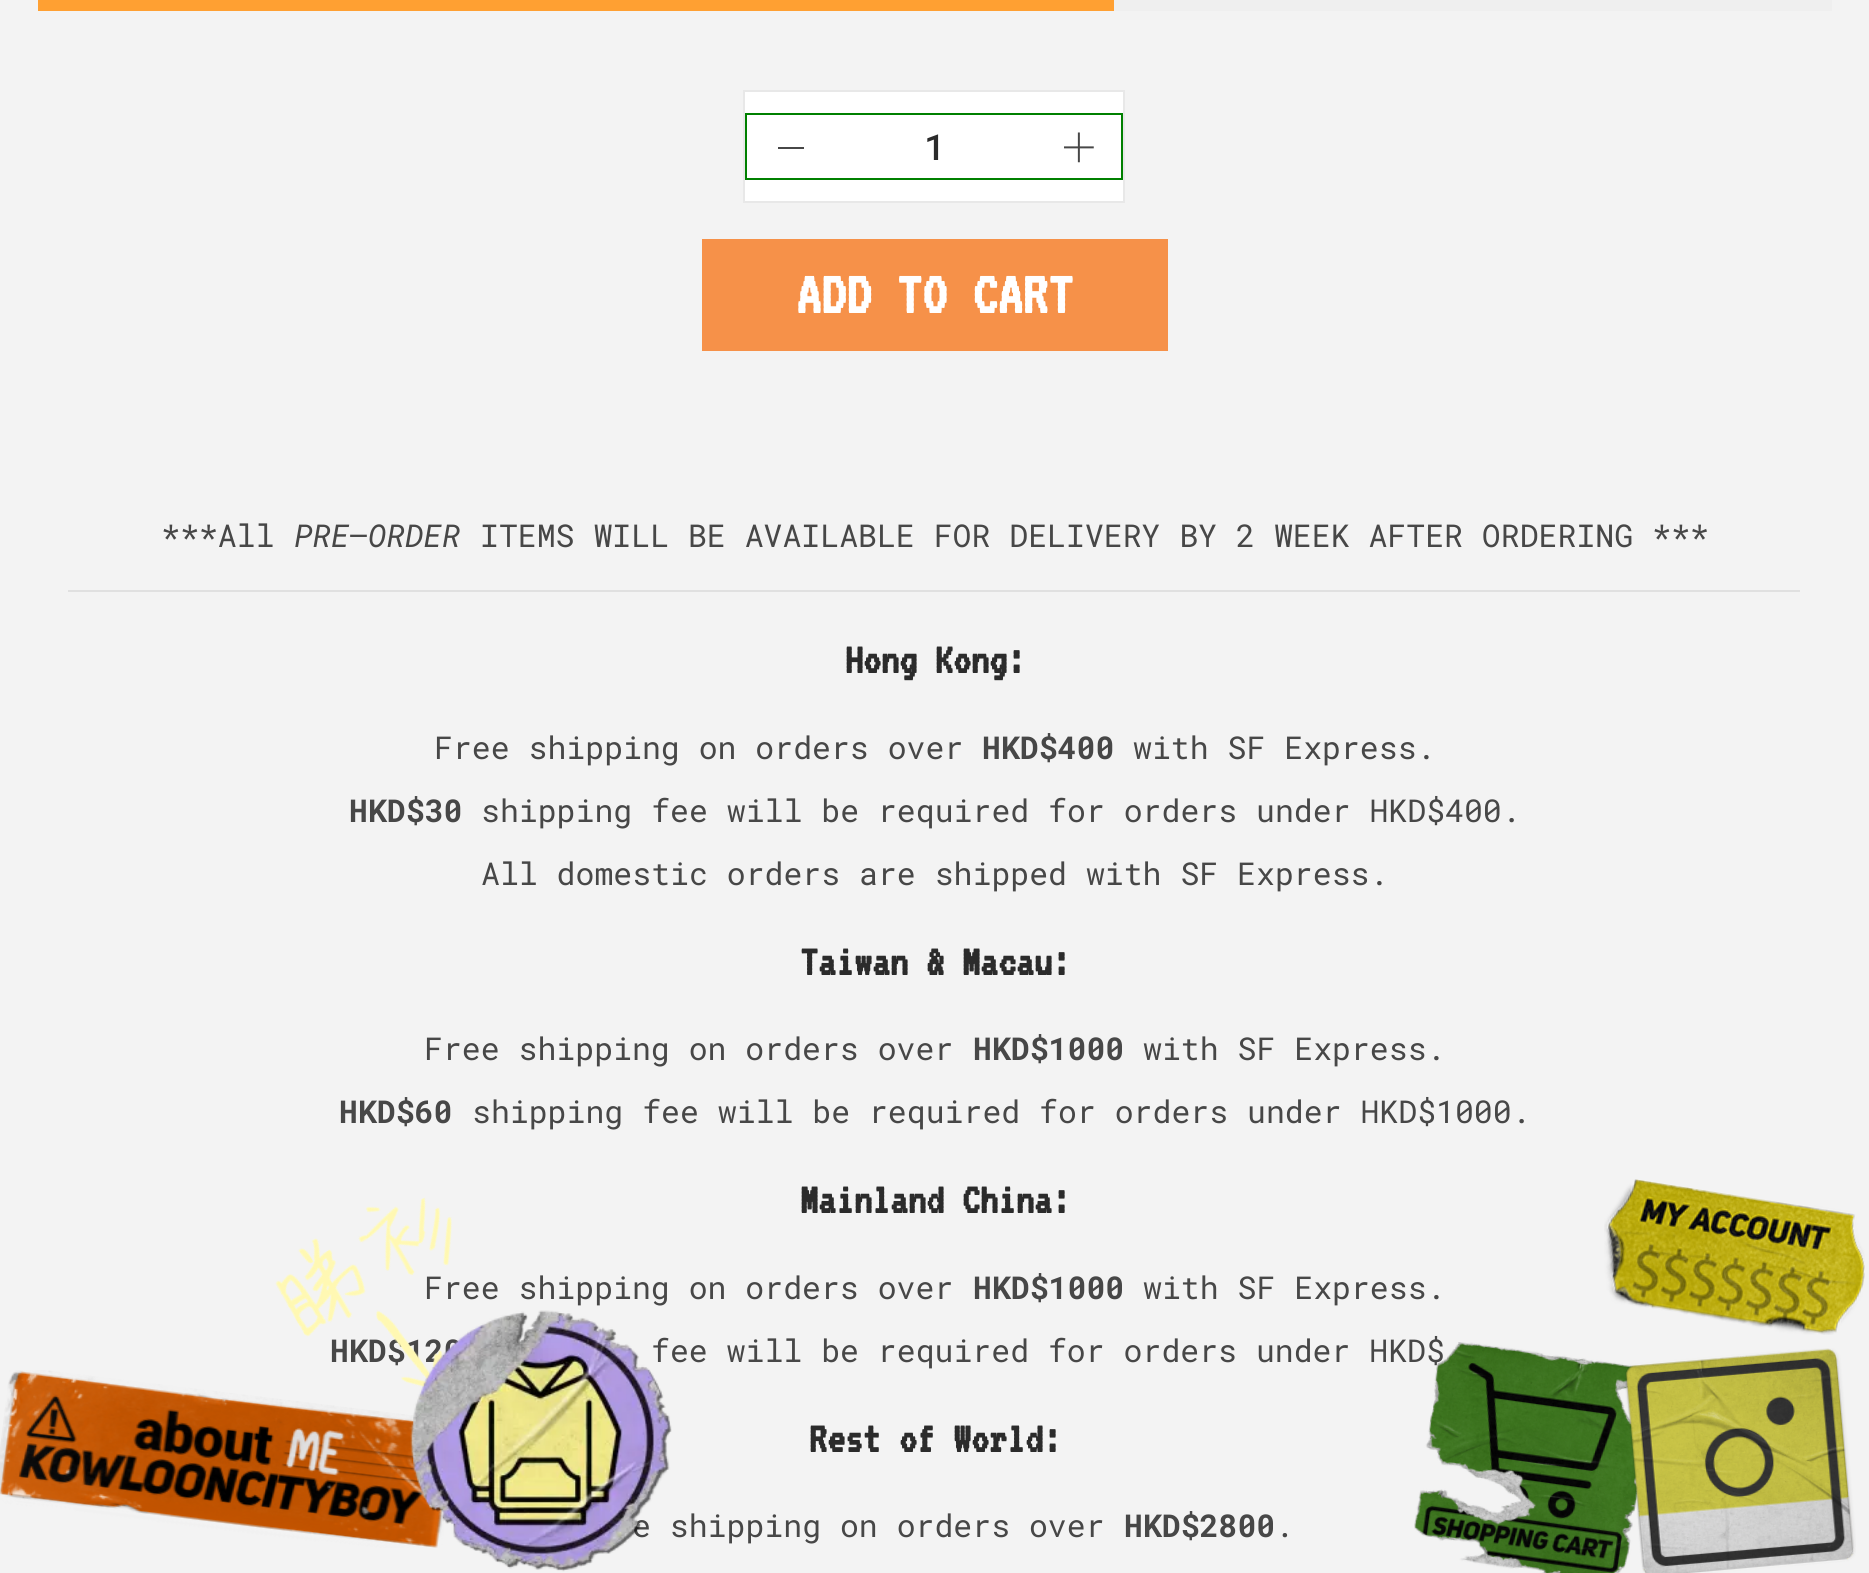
#include <cairo.h>
#include <math.h>
#include <stddef.h>


static void ink(cairo_t *ctx, unsigned color) {
    cairo_set_source_rgb(ctx, (color >> 16) / 255.0, (color >> 8 & 255) / 255.0, (color & 255) / 255.0);
}

static void paste(cairo_t *ctx, const char *path, double x, double y, double w, double h) {
    cairo_surface_t *image = cairo_image_surface_create_from_png(path);
    cairo_save(ctx);
    cairo_set_source_surface(ctx, image, x, y);
    cairo_rectangle(ctx, x, y, w, h);
    cairo_fill(ctx);
    cairo_restore(ctx);
    cairo_surface_destroy(image);
}

int main(void) {
    cairo_surface_t *surface = cairo_image_surface_create(CAIRO_FORMAT_RGB24, 1869, 1573);
    cairo_t *ctx = cairo_create(surface);
    cairo_font_options_t *options = cairo_font_options_create();
    cairo_font_options_set_hint_metrics(options, CAIRO_HINT_METRICS_OFF);
    cairo_font_options_set_hint_style(options, CAIRO_HINT_STYLE_NONE);
    cairo_set_font_options(ctx, options);
    cairo_set_miter_limit(ctx, 4);
    ink(ctx, 0xF3F3F3);
    cairo_paint(ctx);
    ink(ctx, 0xEFEFEF);
    cairo_rectangle(ctx, 1114, 0, 718, 11);
    cairo_fill(ctx);
    ink(ctx, 0xFFA032);
    cairo_rectangle(ctx, 38, 0, 1076, 11);
    cairo_fill(ctx);
    ink(ctx, 0xFFFFFF);
    cairo_rectangle(ctx, 744, 91, 380, 111);
    cairo_fill_preserve(ctx);
    ink(ctx, 0xE8E8E8);
    cairo_stroke(ctx);
    cairo_rectangle(ctx, 746, 114, 376, 65);
    ink(ctx, 0x008000);
    cairo_stroke(ctx);
    ink(ctx, 0x474747);
    cairo_rectangle(ctx, 778, 147, 26, 2);
    cairo_fill(ctx);
    cairo_select_font_face(ctx, "Roboto Mono Medium", CAIRO_FONT_SLANT_NORMAL, CAIRO_FONT_WEIGHT_NORMAL);
    cairo_set_font_size(ctx, 36);
    ink(ctx, 0x2B2B2B);
    cairo_move_to(ctx, 924, 160);
    cairo_show_text(ctx, "1");
    paste(ctx, "media/1.png", 1064, 132, 30, 31);
    ink(ctx, 0xF69149);
    cairo_rectangle(ctx, 702, 239, 466, 112);
    cairo_fill(ctx);
    cairo_select_font_face(ctx, "VT323", CAIRO_FONT_SLANT_NORMAL, CAIRO_FONT_WEIGHT_BOLD);
    cairo_set_font_size(ctx, 63);
    ink(ctx, 0xFFFFFF);
    cairo_move_to(ctx, 796, 313);
    cairo_show_text(ctx, "ADD TO CART");
    cairo_select_font_face(ctx, "Roboto Mono", CAIRO_FONT_SLANT_NORMAL, CAIRO_FONT_WEIGHT_NORMAL);
    cairo_set_font_size(ctx, 31.5);
    ink(ctx, 0x474747);
    cairo_move_to(ctx, 161, 547);
    cairo_show_text(ctx, "***All");
    cairo_select_font_face(ctx, "Roboto Mono", CAIRO_FONT_SLANT_ITALIC, CAIRO_FONT_WEIGHT_NORMAL);
    cairo_move_to(ctx, 294, 547);
    cairo_show_text(ctx, "PRE");
    cairo_select_font_face(ctx, "Roboto Mono", CAIRO_FONT_SLANT_NORMAL, CAIRO_FONT_WEIGHT_NORMAL);
    cairo_move_to(ctx, 349, 547);
    cairo_show_text(ctx, "–");
    cairo_select_font_face(ctx, "Roboto Mono", CAIRO_FONT_SLANT_ITALIC, CAIRO_FONT_WEIGHT_NORMAL);
    cairo_move_to(ctx, 368, 547);
    cairo_show_text(ctx, "ORDER");
    cairo_select_font_face(ctx, "Roboto Mono", CAIRO_FONT_SLANT_NORMAL, CAIRO_FONT_WEIGHT_NORMAL);
    cairo_move_to(ctx, 480, 547);
    cairo_show_text(ctx, "ITEMS WILL BE AVAILABLE FOR DELIVERY BY 2 WEEK AFTER ORDERING ***");
    ink(ctx, 0xE0E0E0);
    cairo_rectangle(ctx, 68, 590, 1732, 2);
    cairo_fill(ctx);
    cairo_select_font_face(ctx, "VT323", CAIRO_FONT_SLANT_NORMAL, CAIRO_FONT_WEIGHT_BOLD);
    cairo_set_font_size(ctx, 45);
    ink(ctx, 0x2B2B2B);
    cairo_move_to(ctx, 845, 673);
    cairo_show_text(ctx, "Hong Kong:");
    cairo_select_font_face(ctx, "Roboto Mono", CAIRO_FONT_SLANT_NORMAL, CAIRO_FONT_WEIGHT_NORMAL);
    cairo_set_font_size(ctx, 31.5);
    ink(ctx, 0x474747);
    cairo_move_to(ctx, 434, 759);
    cairo_show_text(ctx, "Free shipping on orders over");
    cairo_select_font_face(ctx, "Roboto Mono", CAIRO_FONT_SLANT_NORMAL, CAIRO_FONT_WEIGHT_BOLD);
    cairo_move_to(ctx, 982, 759);
    cairo_show_text(ctx, "HKD$400");
    cairo_select_font_face(ctx, "Roboto Mono", CAIRO_FONT_SLANT_NORMAL, CAIRO_FONT_WEIGHT_NORMAL);
    cairo_move_to(ctx, 1133, 759);
    cairo_show_text(ctx, "with SF Express.");
    cairo_select_font_face(ctx, "Roboto Mono", CAIRO_FONT_SLANT_NORMAL, CAIRO_FONT_WEIGHT_BOLD);
    cairo_move_to(ctx, 349, 822);
    cairo_show_text(ctx, "HKD$30");
    cairo_select_font_face(ctx, "Roboto Mono", CAIRO_FONT_SLANT_NORMAL, CAIRO_FONT_WEIGHT_NORMAL);
    cairo_move_to(ctx, 481, 822);
    cairo_show_text(ctx, "shipping fee will be required for orders under HKD$400.");
    cairo_move_to(ctx, 481, 885);
    cairo_show_text(ctx, "All domestic orders are shipped with SF Express.");
    cairo_select_font_face(ctx, "VT323", CAIRO_FONT_SLANT_NORMAL, CAIRO_FONT_WEIGHT_BOLD);
    cairo_set_font_size(ctx, 45);
    ink(ctx, 0x2B2B2B);
    cairo_move_to(ctx, 800, 975);
    cairo_show_text(ctx, "Taiwan & Macau:");
    cairo_select_font_face(ctx, "Roboto Mono", CAIRO_FONT_SLANT_NORMAL, CAIRO_FONT_WEIGHT_NORMAL);
    cairo_set_font_size(ctx, 31.5);
    ink(ctx, 0x474747);
    cairo_move_to(ctx, 424, 1060);
    cairo_show_text(ctx, "Free shipping on orders over");
    cairo_select_font_face(ctx, "Roboto Mono", CAIRO_FONT_SLANT_NORMAL, CAIRO_FONT_WEIGHT_BOLD);
    cairo_move_to(ctx, 973, 1060);
    cairo_show_text(ctx, "HKD$1000");
    cairo_select_font_face(ctx, "Roboto Mono", CAIRO_FONT_SLANT_NORMAL, CAIRO_FONT_WEIGHT_NORMAL);
    cairo_move_to(ctx, 1143, 1060);
    cairo_show_text(ctx, "with SF Express.");
    cairo_select_font_face(ctx, "Roboto Mono", CAIRO_FONT_SLANT_NORMAL, CAIRO_FONT_WEIGHT_BOLD);
    cairo_move_to(ctx, 339, 1123);
    cairo_show_text(ctx, "HKD$60");
    cairo_select_font_face(ctx, "Roboto Mono", CAIRO_FONT_SLANT_NORMAL, CAIRO_FONT_WEIGHT_NORMAL);
    cairo_move_to(ctx, 472, 1123);
    cairo_show_text(ctx, "shipping fee will be required for orders under HKD$1000.");
    cairo_select_font_face(ctx, "VT323", CAIRO_FONT_SLANT_NORMAL, CAIRO_FONT_WEIGHT_BOLD);
    cairo_set_font_size(ctx, 45);
    ink(ctx, 0x2B2B2B);
    cairo_move_to(ctx, 800, 1213);
    cairo_show_text(ctx, "Mainland China:");
    cairo_select_font_face(ctx, "Roboto Mono", CAIRO_FONT_SLANT_NORMAL, CAIRO_FONT_WEIGHT_NORMAL);
    cairo_set_font_size(ctx, 31.5);
    ink(ctx, 0x474747);
    cairo_move_to(ctx, 424, 1299);
    cairo_show_text(ctx, "Free shipping on orders over");
    cairo_select_font_face(ctx, "Roboto Mono", CAIRO_FONT_SLANT_NORMAL, CAIRO_FONT_WEIGHT_BOLD);
    cairo_move_to(ctx, 973, 1299);
    cairo_show_text(ctx, "HKD$1000");
    cairo_select_font_face(ctx, "Roboto Mono", CAIRO_FONT_SLANT_NORMAL, CAIRO_FONT_WEIGHT_NORMAL);
    cairo_move_to(ctx, 1143, 1299);
    cairo_show_text(ctx, "with SF Express.");
    cairo_select_font_face(ctx, "Roboto Mono", CAIRO_FONT_SLANT_NORMAL, CAIRO_FONT_WEIGHT_BOLD);
    cairo_move_to(ctx, 330, 1362);
    cairo_show_text(ctx, "HKD$120");
    cairo_select_font_face(ctx, "Roboto Mono", CAIRO_FONT_SLANT_NORMAL, CAIRO_FONT_WEIGHT_NORMAL);
    cairo_move_to(ctx, 651, 1362);
    cairo_show_text(ctx, "fee will be required for orders under HKD$");
    cairo_select_font_face(ctx, "VT323", CAIRO_FONT_SLANT_NORMAL, CAIRO_FONT_WEIGHT_BOLD);
    cairo_set_font_size(ctx, 45);
    ink(ctx, 0x2B2B2B);
    cairo_move_to(ctx, 809, 1452);
    cairo_show_text(ctx, "Rest of World:");
    cairo_select_font_face(ctx, "Roboto Mono", CAIRO_FONT_SLANT_NORMAL, CAIRO_FONT_WEIGHT_NORMAL);
    cairo_set_font_size(ctx, 31.5);
    ink(ctx, 0x474747);
    cairo_move_to(ctx, 632, 1537);
    cairo_show_text(ctx, "e shipping on orders over");
    cairo_select_font_face(ctx, "Roboto Mono", CAIRO_FONT_SLANT_NORMAL, CAIRO_FONT_WEIGHT_BOLD);
    cairo_move_to(ctx, 1124, 1537);
    cairo_show_text(ctx, "HKD$2800");
    cairo_select_font_face(ctx, "Roboto Mono", CAIRO_FONT_SLANT_NORMAL, CAIRO_FONT_WEIGHT_NORMAL);
    cairo_move_to(ctx, 1275, 1537);
    cairo_show_text(ctx, ".");
    paste(ctx, "media/6.png", 0, 1370, 444, 178);
    paste(ctx, "media/2.png", 275, 1197, 177, 191);
    paste(ctx, "media/3.png", 410, 1310, 262, 262);
    paste(ctx, "media/4.png", 1414, 1342, 228, 231);
    paste(ctx, "media/5.png", 1604, 1179, 261, 156);
    paste(ctx, "media/7.png", 1625, 1348, 231, 225);
    cairo_surface_write_to_png(surface, "image.png");
    cairo_font_options_destroy(options);
    cairo_destroy(ctx);
    cairo_surface_destroy(surface);
    return 0;
}
